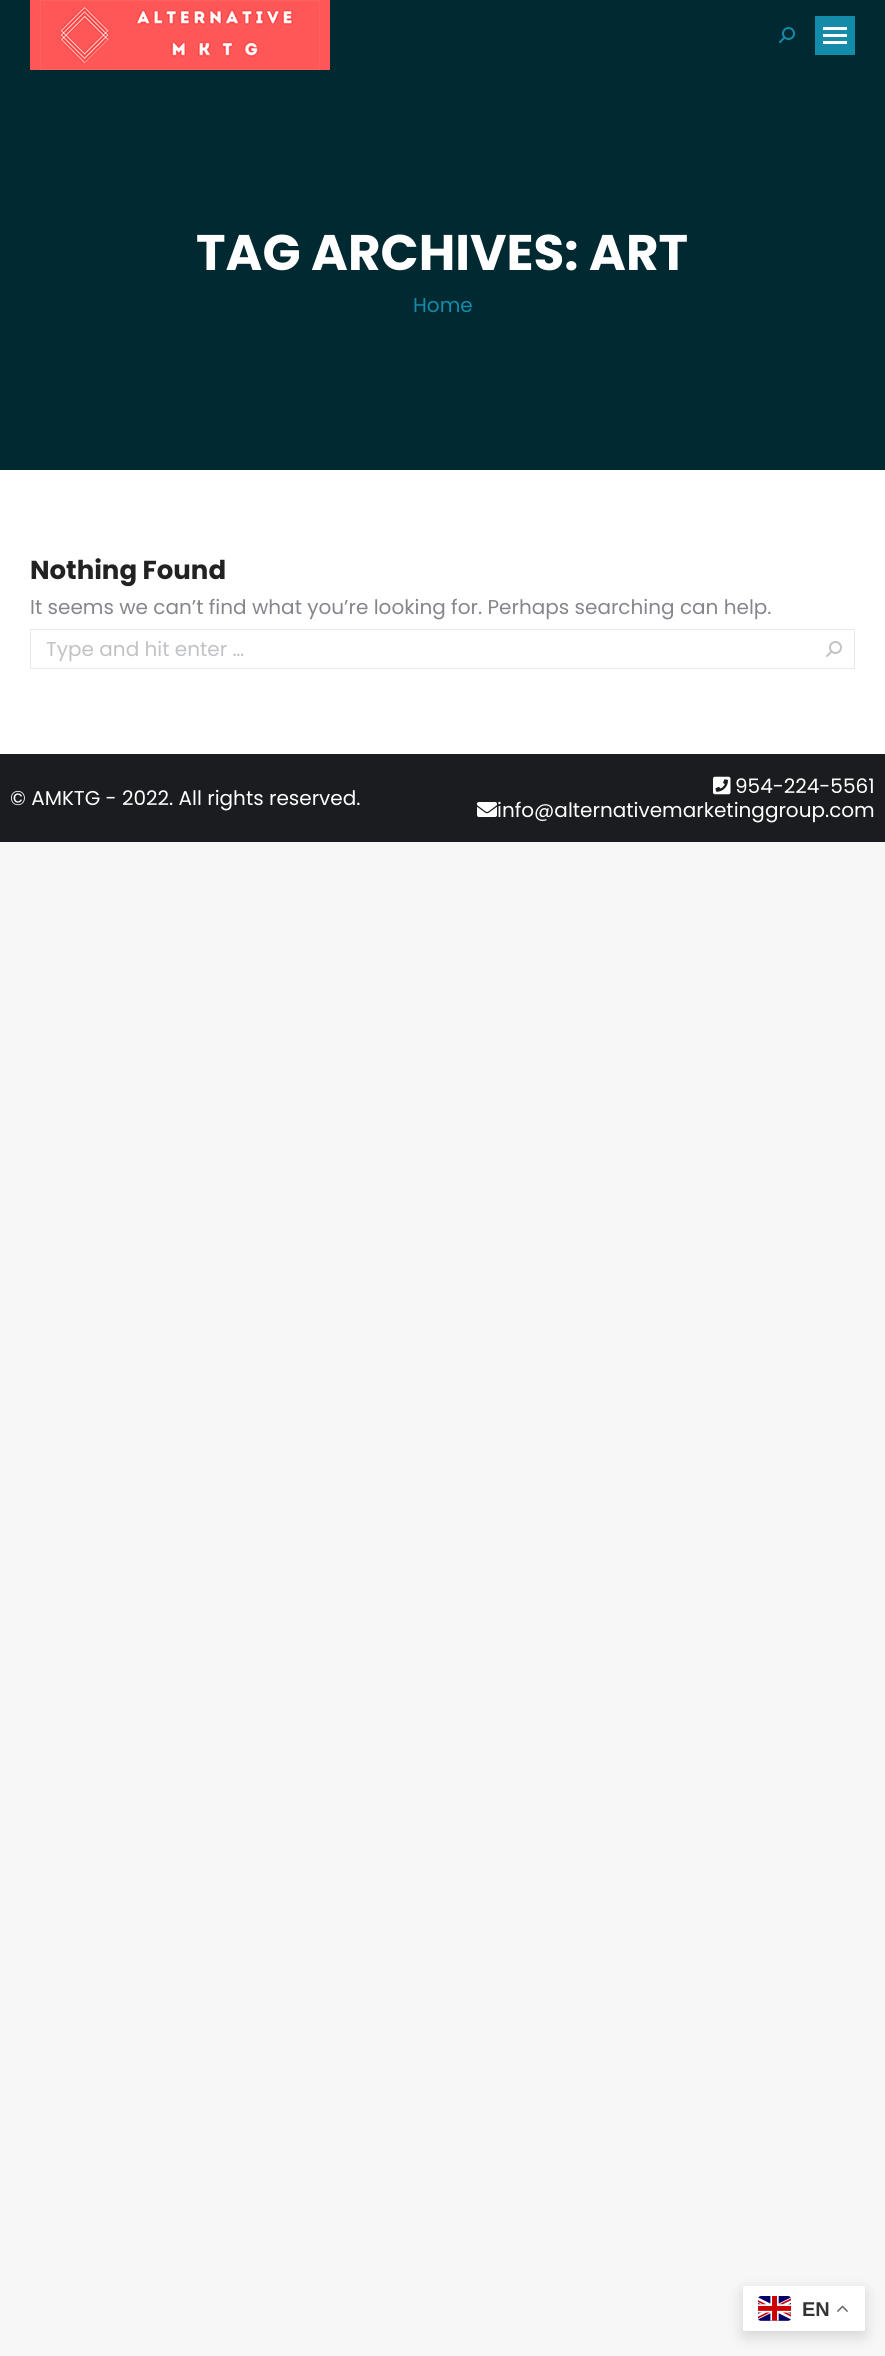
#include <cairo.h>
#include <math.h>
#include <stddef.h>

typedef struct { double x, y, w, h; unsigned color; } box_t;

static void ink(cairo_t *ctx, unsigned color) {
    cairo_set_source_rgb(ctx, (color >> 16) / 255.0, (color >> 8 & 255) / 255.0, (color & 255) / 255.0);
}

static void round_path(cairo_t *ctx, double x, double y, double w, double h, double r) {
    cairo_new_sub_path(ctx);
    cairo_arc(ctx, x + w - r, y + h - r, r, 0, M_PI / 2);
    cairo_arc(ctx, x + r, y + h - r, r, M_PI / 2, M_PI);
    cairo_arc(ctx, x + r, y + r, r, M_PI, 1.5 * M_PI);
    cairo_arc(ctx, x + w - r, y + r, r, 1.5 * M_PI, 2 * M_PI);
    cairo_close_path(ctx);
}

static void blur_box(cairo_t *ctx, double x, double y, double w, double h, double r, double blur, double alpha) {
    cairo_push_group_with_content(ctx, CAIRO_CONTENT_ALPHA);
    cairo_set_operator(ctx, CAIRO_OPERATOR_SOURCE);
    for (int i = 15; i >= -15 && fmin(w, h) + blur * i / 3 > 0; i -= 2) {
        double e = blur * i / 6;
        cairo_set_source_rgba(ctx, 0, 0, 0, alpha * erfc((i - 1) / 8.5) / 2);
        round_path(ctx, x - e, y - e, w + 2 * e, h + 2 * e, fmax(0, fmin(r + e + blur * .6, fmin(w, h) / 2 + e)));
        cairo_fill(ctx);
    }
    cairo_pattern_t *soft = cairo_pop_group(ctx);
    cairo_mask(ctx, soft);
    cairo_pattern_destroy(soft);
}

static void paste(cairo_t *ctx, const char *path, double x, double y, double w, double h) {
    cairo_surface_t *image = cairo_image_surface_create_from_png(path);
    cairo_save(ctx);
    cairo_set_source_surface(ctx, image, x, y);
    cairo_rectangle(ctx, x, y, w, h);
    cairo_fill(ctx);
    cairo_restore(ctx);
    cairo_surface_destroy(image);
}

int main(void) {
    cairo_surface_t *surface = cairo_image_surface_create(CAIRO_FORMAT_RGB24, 885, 2356);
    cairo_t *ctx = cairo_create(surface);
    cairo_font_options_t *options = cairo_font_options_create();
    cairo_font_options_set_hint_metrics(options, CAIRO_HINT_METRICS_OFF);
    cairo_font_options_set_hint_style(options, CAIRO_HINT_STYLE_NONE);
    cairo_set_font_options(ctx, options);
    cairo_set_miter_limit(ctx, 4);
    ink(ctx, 0xF7F7F7);
    cairo_paint(ctx);
    ink(ctx, 0xFFFFFF);
    cairo_rectangle(ctx, 0, 470, 885, 284);
    cairo_fill(ctx);
    ink(ctx, 0x002932);
    cairo_rectangle(ctx, 0, 0, 885, 470);
    cairo_fill(ctx);
    paste(ctx, "media/1.png", 30, 0, 300, 70);
    paste(ctx, "media/2.png", 779, 27, 16, 16);
    {
        static const box_t items[] = {
            {815, 16, 40, 39, 0x148BA9},
            {823, 27, 24, 3, 0xFFFFFF},
            {823, 34, 24, 3, 0xFFFFFF},
            {823, 41, 24, 3, 0xFFFFFF},
        };
        for (size_t i = 0; i < sizeof items / sizeof *items; i++) {
            ink(ctx, items[i].color);
            cairo_rectangle(ctx, items[i].x, items[i].y, items[i].w, items[i].h);
            cairo_fill(ctx);
        }
    }
    cairo_select_font_face(ctx, "Poppins", CAIRO_FONT_SLANT_NORMAL, CAIRO_FONT_WEIGHT_BOLD);
    cairo_set_font_size(ctx, 50);
    cairo_move_to(ctx, 196, 270);
    cairo_show_text(ctx, "TAG ARCHIVES: ART");
    cairo_select_font_face(ctx, "Poppins", CAIRO_FONT_SLANT_NORMAL, CAIRO_FONT_WEIGHT_NORMAL);
    cairo_set_font_size(ctx, 20);
    ink(ctx, 0x148BA9);
    cairo_move_to(ctx, 413, 312);
    cairo_show_text(ctx, "Home");
    cairo_select_font_face(ctx, "Poppins", CAIRO_FONT_SLANT_NORMAL, CAIRO_FONT_WEIGHT_BOLD);
    cairo_set_font_size(ctx, 26);
    ink(ctx, 0x222222);
    cairo_move_to(ctx, 30, 579);
    cairo_show_text(ctx, "Nothing Found");
    cairo_select_font_face(ctx, "Poppins", CAIRO_FONT_SLANT_NORMAL, CAIRO_FONT_WEIGHT_NORMAL);
    cairo_set_font_size(ctx, 20);
    ink(ctx, 0x85868C);
    cairo_move_to(ctx, 30, 614);
    cairo_show_text(ctx, "It seems we can’t find what you’re looking for. Perhaps searching can help.");
    cairo_rectangle(ctx, 30.5, 629.5, 824, 39);
    ink(ctx, 0xE9E9E9);
    cairo_set_line_width(ctx, 1);
    cairo_stroke(ctx);
    ink(ctx, 0xC1C2C5);
    cairo_move_to(ctx, 46, 656);
    cairo_show_text(ctx, "Type and hit enter …");
    paste(ctx, "media/3.png", 826, 641, 16, 16);
    ink(ctx, 0x1A1C20);
    cairo_rectangle(ctx, 0, 754, 885, 88);
    cairo_fill(ctx);
    ink(ctx, 0xFFFFFF);
    cairo_move_to(ctx, 10, 805);
    cairo_show_text(ctx, "© AMKTG - 2022. All rights reserved.");
    paste(ctx, "media/4.png", 713, 776, 18, 19);
    cairo_move_to(ctx, 735, 793);
    cairo_show_text(ctx, "954-224-5561");
    paste(ctx, "media/5.png", 477, 802, 20, 15);
    cairo_move_to(ctx, 497, 817);
    cairo_show_text(ctx, "info@alternativemarketinggroup.com");
    ink(ctx, 0x000000);
    blur_box(ctx, 743, 2291, 122, 45, 2, 7.5, 0.15);
    ink(ctx, 0xFFFFFF);
    round_path(ctx, 743, 2286, 122, 45, 2);
    cairo_fill(ctx);
    paste(ctx, "media/6.png", 758, 2296, 33, 25);
    cairo_select_font_face(ctx, "Liberation Sans", CAIRO_FONT_SLANT_NORMAL, CAIRO_FONT_WEIGHT_BOLD);
    ink(ctx, 0x333333);
    cairo_move_to(ctx, 802, 2316);
    cairo_show_text(ctx, "EN");
    paste(ctx, "media/7.png", 837, 2305, 11, 7);
    cairo_surface_write_to_png(surface, "image.png");
    cairo_font_options_destroy(options);
    cairo_destroy(ctx);
    cairo_surface_destroy(surface);
    return 0;
}
